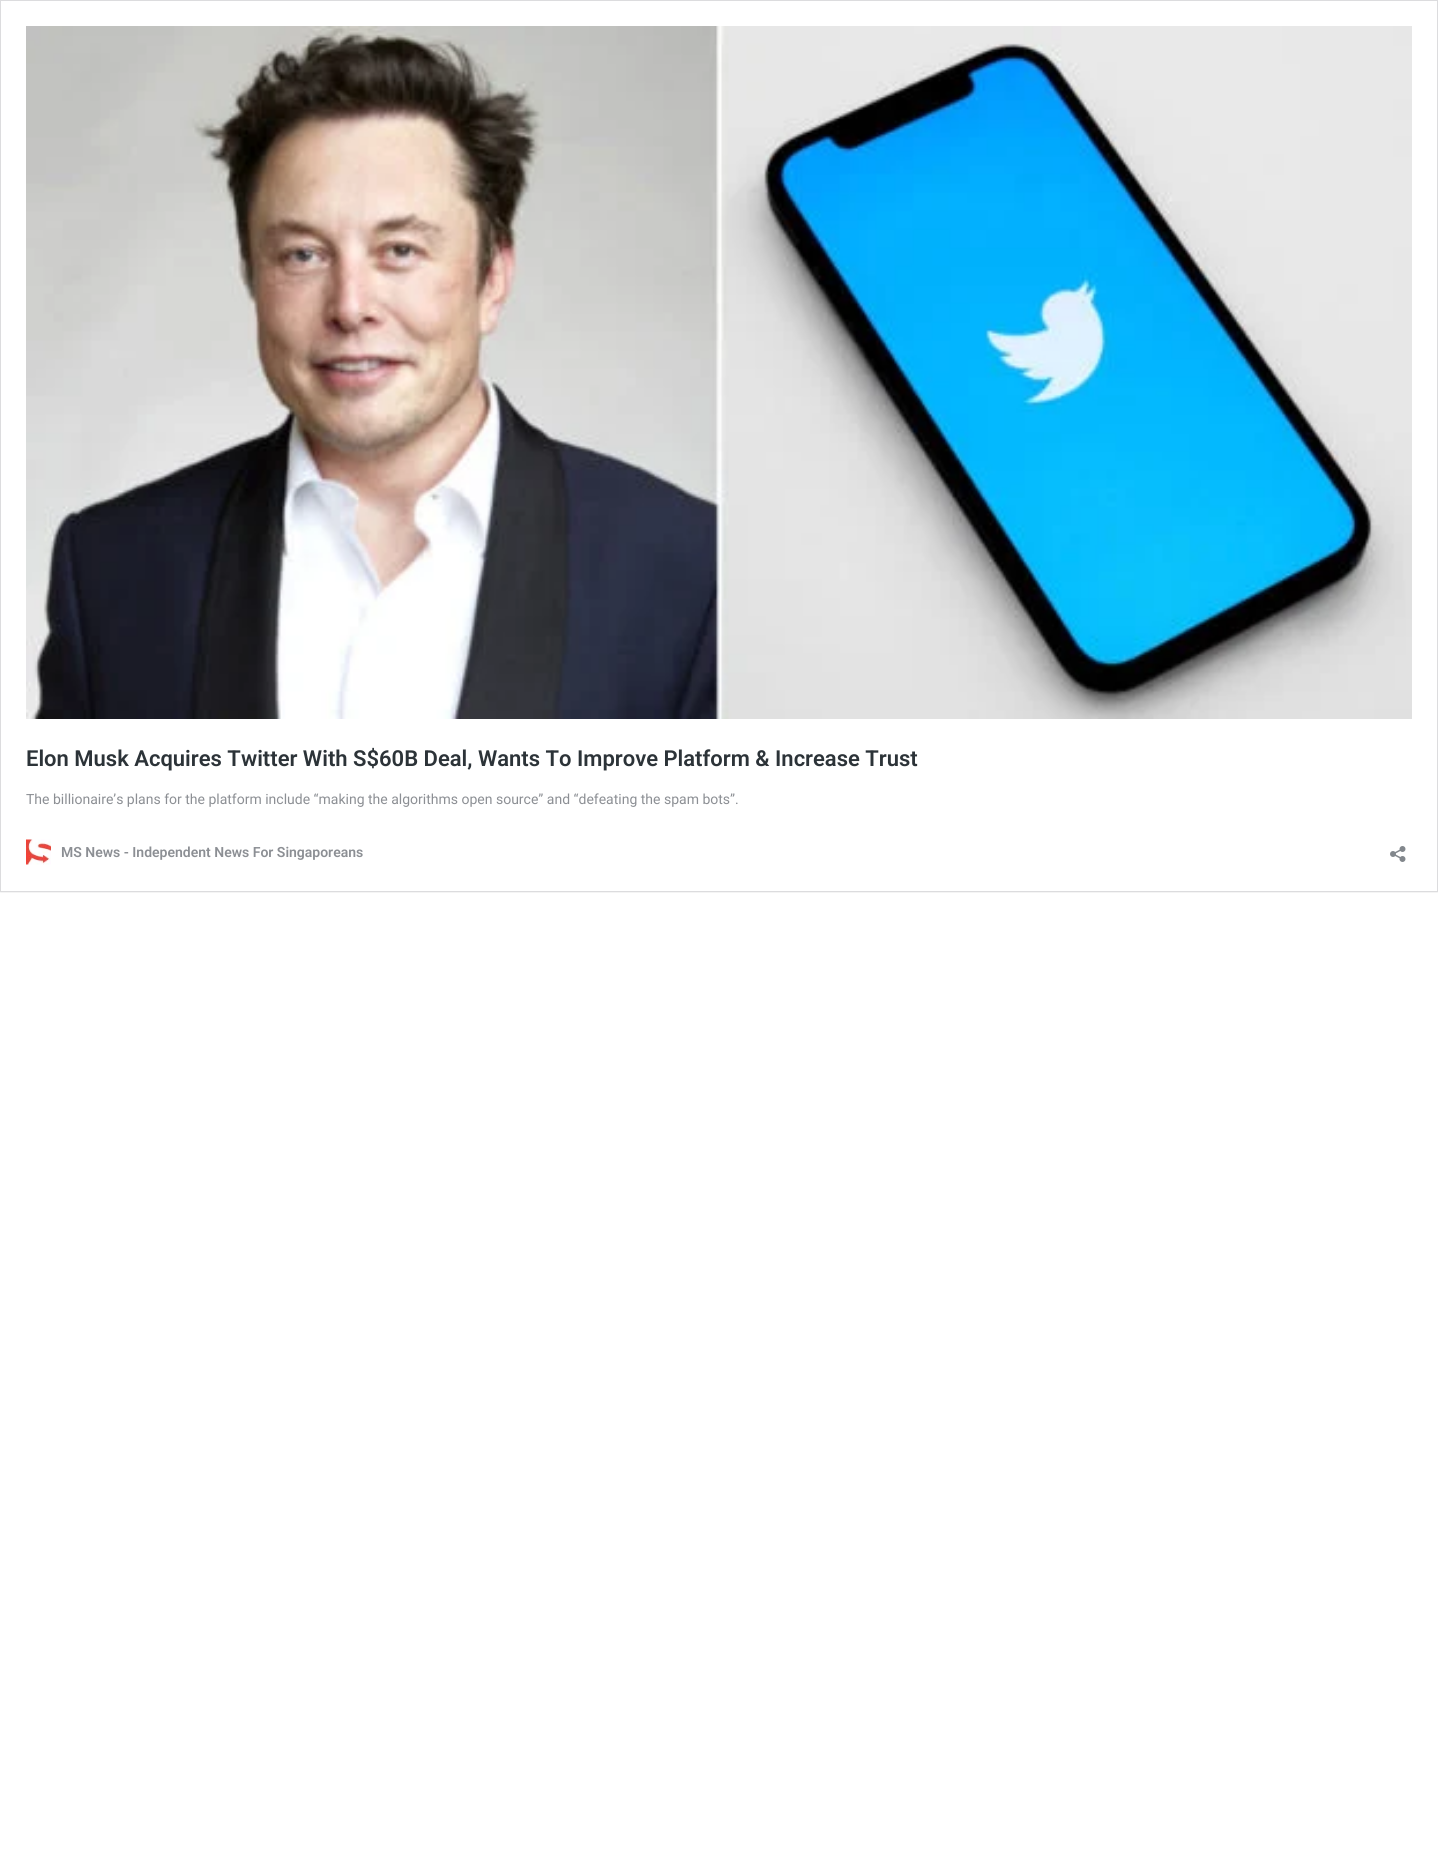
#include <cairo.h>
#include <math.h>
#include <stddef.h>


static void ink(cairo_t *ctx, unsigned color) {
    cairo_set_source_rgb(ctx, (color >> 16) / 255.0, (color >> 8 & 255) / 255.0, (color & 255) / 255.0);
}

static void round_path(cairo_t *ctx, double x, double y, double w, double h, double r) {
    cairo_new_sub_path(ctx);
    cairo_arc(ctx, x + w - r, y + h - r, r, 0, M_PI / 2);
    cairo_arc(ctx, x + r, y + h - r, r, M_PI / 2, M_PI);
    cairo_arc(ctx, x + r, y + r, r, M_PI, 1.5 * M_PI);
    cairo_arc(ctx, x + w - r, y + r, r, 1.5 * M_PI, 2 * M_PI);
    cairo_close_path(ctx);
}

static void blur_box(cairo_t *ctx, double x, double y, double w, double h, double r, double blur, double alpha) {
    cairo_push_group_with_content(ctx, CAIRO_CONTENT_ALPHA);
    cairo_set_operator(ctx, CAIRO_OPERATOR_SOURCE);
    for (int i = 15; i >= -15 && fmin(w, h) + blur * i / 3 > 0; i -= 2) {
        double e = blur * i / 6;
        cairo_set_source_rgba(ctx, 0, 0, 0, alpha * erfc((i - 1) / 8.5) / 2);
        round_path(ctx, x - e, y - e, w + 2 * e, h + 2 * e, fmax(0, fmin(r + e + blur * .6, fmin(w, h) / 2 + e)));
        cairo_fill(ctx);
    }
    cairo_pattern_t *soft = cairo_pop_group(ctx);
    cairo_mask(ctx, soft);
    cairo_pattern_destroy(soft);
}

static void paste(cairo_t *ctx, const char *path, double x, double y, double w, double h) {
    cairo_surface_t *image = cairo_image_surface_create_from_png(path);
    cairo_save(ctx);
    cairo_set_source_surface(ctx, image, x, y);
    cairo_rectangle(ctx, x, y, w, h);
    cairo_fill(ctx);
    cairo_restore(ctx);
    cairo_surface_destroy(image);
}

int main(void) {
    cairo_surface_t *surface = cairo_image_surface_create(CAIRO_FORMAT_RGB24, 1438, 1851);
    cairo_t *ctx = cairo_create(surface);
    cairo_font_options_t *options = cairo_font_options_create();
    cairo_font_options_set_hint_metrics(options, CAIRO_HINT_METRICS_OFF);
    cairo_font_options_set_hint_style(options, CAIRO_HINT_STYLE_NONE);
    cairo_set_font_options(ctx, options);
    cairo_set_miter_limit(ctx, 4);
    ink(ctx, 0xFFFFFF);
    cairo_paint(ctx);
    cairo_save(ctx);
    cairo_rectangle(ctx, 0, 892, 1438, 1);
    cairo_clip(ctx);
    ink(ctx, 0x000000);
    blur_box(ctx, 0, 1, 1438, 892, 0, 0.5, 0.05);
    cairo_restore(ctx);
    cairo_rectangle(ctx, 0.5, 0.5, 1437, 891);
    ink(ctx, 0xDCDCDE);
    cairo_set_line_width(ctx, 1);
    cairo_stroke(ctx);
    paste(ctx, "media/1.png", 26, 26, 1386, 693);
    cairo_select_font_face(ctx, "Roboto SemiBold", CAIRO_FONT_SLANT_NORMAL, CAIRO_FONT_WEIGHT_NORMAL);
    cairo_set_font_size(ctx, 22);
    ink(ctx, 0x2C3338);
    cairo_move_to(ctx, 26, 766);
    cairo_show_text(ctx, "Elon Musk Acquires Twitter With S$60B Deal, Wants To Improve Platform & Increase Trust");
    cairo_select_font_face(ctx, "Roboto", CAIRO_FONT_SLANT_NORMAL, CAIRO_FONT_WEIGHT_NORMAL);
    cairo_set_font_size(ctx, 14);
    ink(ctx, 0x8C8F94);
    cairo_move_to(ctx, 26, 804);
    cairo_show_text(ctx, "The billionaire’s plans for the platform include “making the algorithms open source” and “defeating the spam bots”.");
    paste(ctx, "media/2.png", 26, 839, 25, 26);
    cairo_select_font_face(ctx, "Roboto SemiBold", CAIRO_FONT_SLANT_NORMAL, CAIRO_FONT_WEIGHT_NORMAL);
    cairo_move_to(ctx, 61, 857);
    cairo_show_text(ctx, "MS News - Independent News For Singaporeans");
    paste(ctx, "media/3.png", 1390, 846, 16, 16);
    cairo_surface_write_to_png(surface, "image.png");
    cairo_font_options_destroy(options);
    cairo_destroy(ctx);
    cairo_surface_destroy(surface);
    return 0;
}
